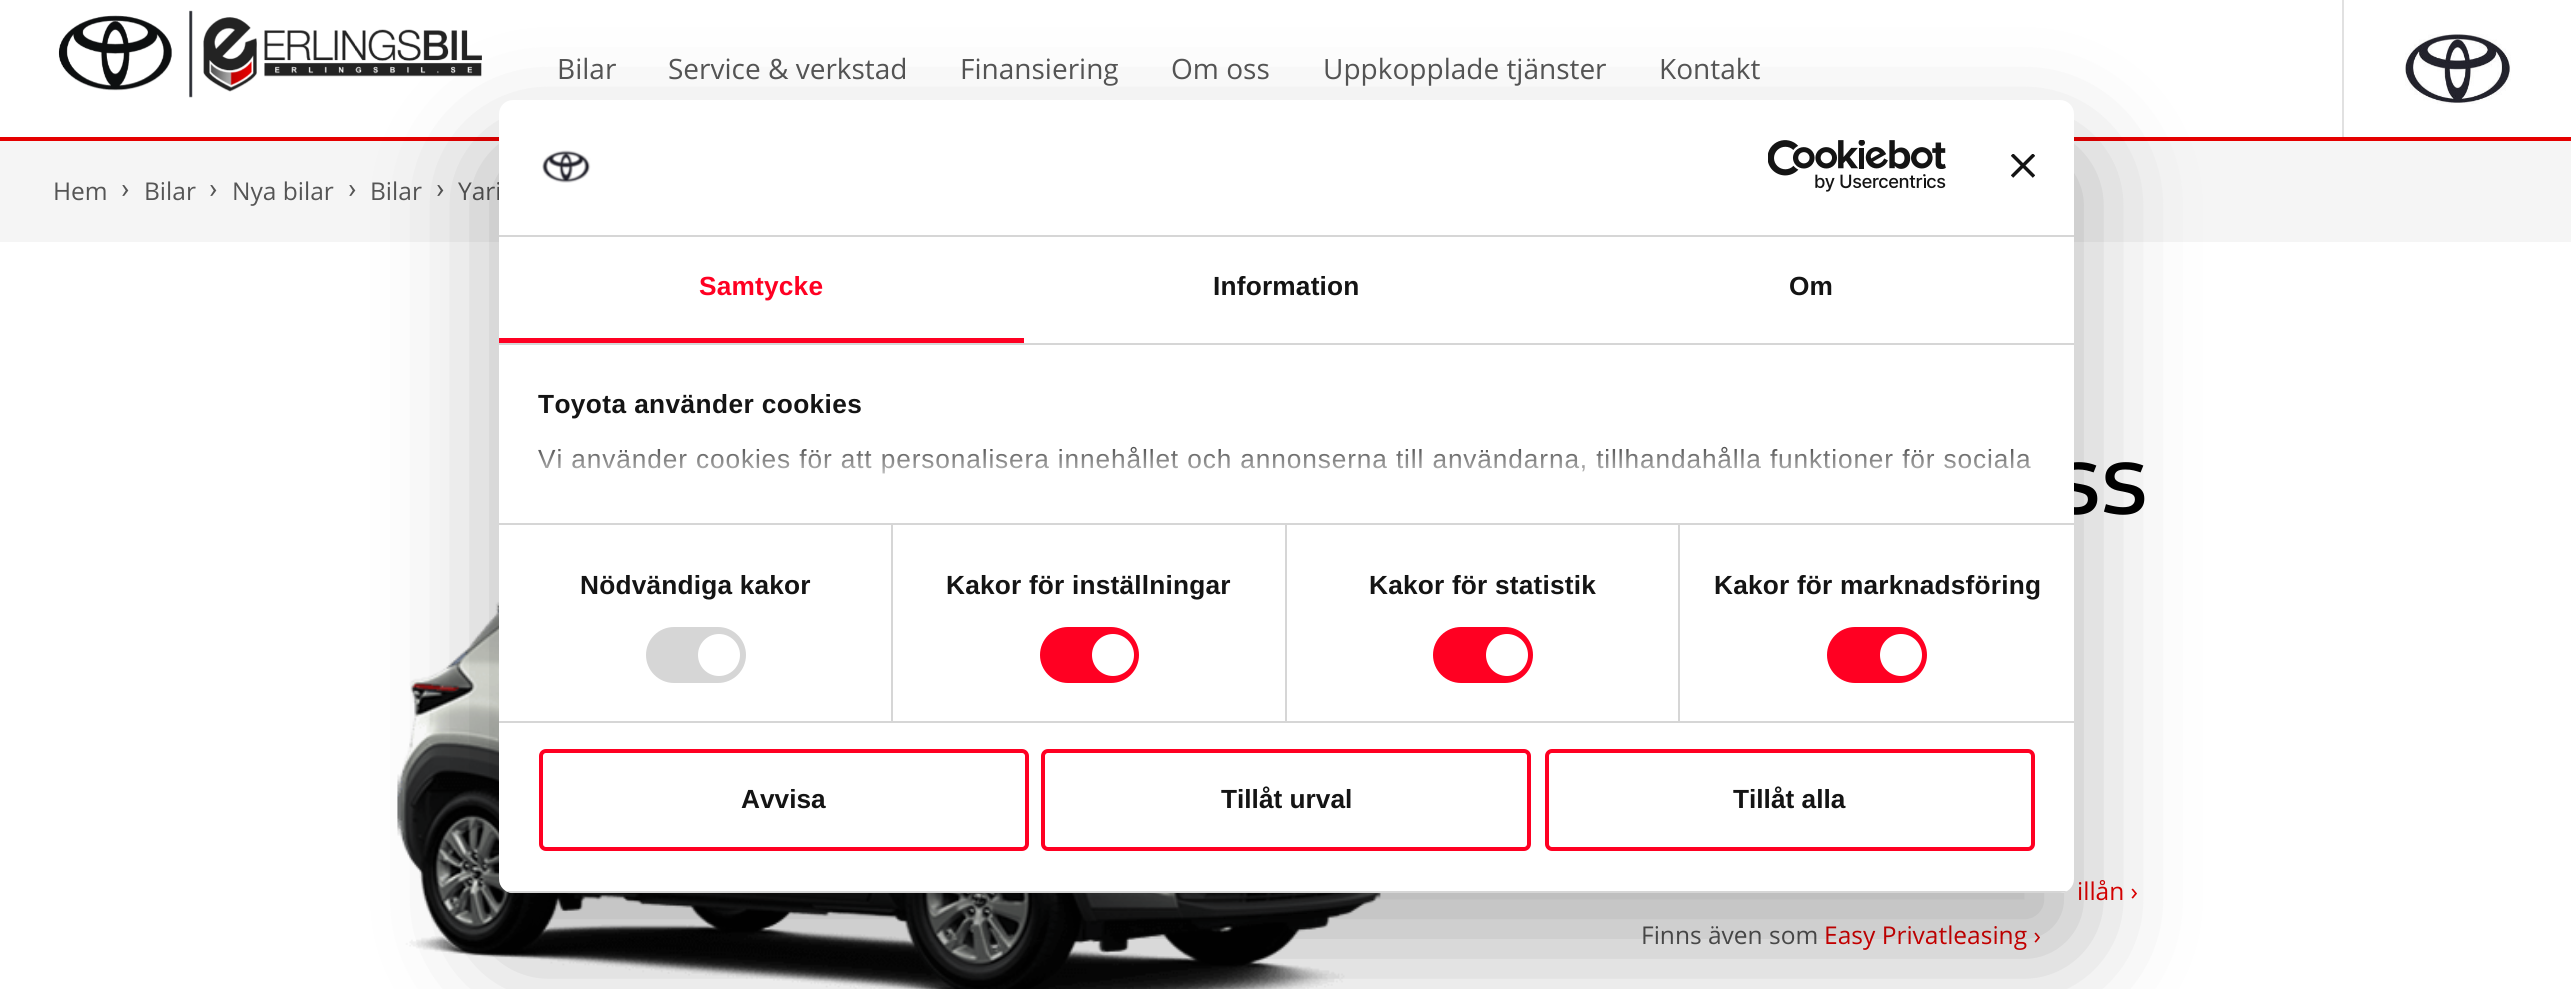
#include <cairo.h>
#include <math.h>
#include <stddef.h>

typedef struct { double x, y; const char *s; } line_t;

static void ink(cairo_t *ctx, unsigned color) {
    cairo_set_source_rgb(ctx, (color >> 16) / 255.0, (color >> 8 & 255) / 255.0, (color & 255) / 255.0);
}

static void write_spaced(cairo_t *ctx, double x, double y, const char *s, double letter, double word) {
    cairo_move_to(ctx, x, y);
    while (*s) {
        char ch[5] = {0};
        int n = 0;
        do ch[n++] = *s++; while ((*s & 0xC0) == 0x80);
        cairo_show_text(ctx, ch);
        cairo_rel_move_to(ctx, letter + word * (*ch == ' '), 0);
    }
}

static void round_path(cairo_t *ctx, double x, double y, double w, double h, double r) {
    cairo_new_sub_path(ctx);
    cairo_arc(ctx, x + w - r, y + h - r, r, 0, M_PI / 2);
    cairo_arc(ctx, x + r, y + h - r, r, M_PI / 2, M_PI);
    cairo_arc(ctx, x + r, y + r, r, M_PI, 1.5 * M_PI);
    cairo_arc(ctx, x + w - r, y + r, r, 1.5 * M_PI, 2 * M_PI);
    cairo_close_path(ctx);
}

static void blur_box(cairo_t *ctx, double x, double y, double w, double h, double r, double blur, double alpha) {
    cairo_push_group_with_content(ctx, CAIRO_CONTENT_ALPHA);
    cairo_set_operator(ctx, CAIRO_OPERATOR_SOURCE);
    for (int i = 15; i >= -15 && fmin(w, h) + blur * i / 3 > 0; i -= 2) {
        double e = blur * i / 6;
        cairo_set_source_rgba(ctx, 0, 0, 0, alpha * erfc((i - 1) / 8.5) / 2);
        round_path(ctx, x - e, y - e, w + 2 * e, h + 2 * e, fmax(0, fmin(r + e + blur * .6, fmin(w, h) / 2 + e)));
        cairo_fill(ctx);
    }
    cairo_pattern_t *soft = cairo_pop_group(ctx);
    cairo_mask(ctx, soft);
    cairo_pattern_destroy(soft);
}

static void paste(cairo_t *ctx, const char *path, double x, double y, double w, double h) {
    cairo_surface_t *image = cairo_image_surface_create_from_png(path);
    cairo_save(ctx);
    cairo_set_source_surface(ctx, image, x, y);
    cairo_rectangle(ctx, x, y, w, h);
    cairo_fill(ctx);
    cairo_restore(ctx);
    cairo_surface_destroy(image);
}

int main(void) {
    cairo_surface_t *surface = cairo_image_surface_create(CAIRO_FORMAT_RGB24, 2571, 989);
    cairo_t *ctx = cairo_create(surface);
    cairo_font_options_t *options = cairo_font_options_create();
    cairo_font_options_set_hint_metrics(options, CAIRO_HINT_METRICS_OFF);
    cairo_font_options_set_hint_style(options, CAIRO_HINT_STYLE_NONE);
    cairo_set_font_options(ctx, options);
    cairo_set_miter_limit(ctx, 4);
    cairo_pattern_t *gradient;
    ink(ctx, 0xFFFFFF);
    cairo_paint(ctx);
    ink(ctx, 0xE50000);
    cairo_rectangle(ctx, 0, 137, 2571, 4);
    cairo_fill(ctx);
    paste(ctx, "media/1.png", 58, 10, 424, 88);
    cairo_select_font_face(ctx, "Open Sans", CAIRO_FONT_SLANT_NORMAL, CAIRO_FONT_WEIGHT_NORMAL);
    cairo_set_font_size(ctx, 28);
    ink(ctx, 0x555555);
    {
        static const line_t items[] = {
            {557, 79, "Bilar"},
            {668, 79, "Service & verkstad"},
            {960, 79, "Finansiering"},
            {1171, 79, "Om oss"},
            {1323, 79, "Uppkopplade tjänster"},
            {1659, 79, "Kontakt"},
        };
        for (size_t i = 0; i < sizeof items / sizeof *items; i++) {
            cairo_move_to(ctx, items[i].x, items[i].y);
            cairo_show_text(ctx, items[i].s);
        }
    }
    ink(ctx, 0xE1E1E1);
    cairo_rectangle(ctx, 2342, 0, 2, 137);
    cairo_fill(ctx);
    paste(ctx, "media/2.png", 2405, 34, 106, 70);
    ink(ctx, 0xF5F5F5);
    cairo_rectangle(ctx, 0, 141, 2571, 101);
    cairo_fill(ctx);
    cairo_set_font_size(ctx, 24.5);
    ink(ctx, 0x555555);
    cairo_move_to(ctx, 53, 200);
    cairo_show_text(ctx, "Hem");
    cairo_select_font_face(ctx, "Roboto", CAIRO_FONT_SLANT_NORMAL, CAIRO_FONT_WEIGHT_NORMAL);
    cairo_set_font_size(ctx, 28);
    cairo_move_to(ctx, 121, 198);
    cairo_show_text(ctx, "›");
    cairo_select_font_face(ctx, "Open Sans", CAIRO_FONT_SLANT_NORMAL, CAIRO_FONT_WEIGHT_NORMAL);
    cairo_set_font_size(ctx, 24.5);
    cairo_move_to(ctx, 144, 200);
    cairo_show_text(ctx, "Bilar");
    cairo_select_font_face(ctx, "Roboto", CAIRO_FONT_SLANT_NORMAL, CAIRO_FONT_WEIGHT_NORMAL);
    cairo_set_font_size(ctx, 28);
    cairo_move_to(ctx, 209, 198);
    cairo_show_text(ctx, "›");
    cairo_select_font_face(ctx, "Open Sans", CAIRO_FONT_SLANT_NORMAL, CAIRO_FONT_WEIGHT_NORMAL);
    cairo_set_font_size(ctx, 24.5);
    cairo_move_to(ctx, 232, 200);
    cairo_show_text(ctx, "Nya bilar");
    cairo_select_font_face(ctx, "Roboto", CAIRO_FONT_SLANT_NORMAL, CAIRO_FONT_WEIGHT_NORMAL);
    cairo_set_font_size(ctx, 28);
    cairo_move_to(ctx, 348, 198);
    cairo_show_text(ctx, "›");
    cairo_select_font_face(ctx, "Open Sans", CAIRO_FONT_SLANT_NORMAL, CAIRO_FONT_WEIGHT_NORMAL);
    cairo_set_font_size(ctx, 24.5);
    cairo_move_to(ctx, 370, 200);
    cairo_show_text(ctx, "Bilar");
    cairo_select_font_face(ctx, "Roboto", CAIRO_FONT_SLANT_NORMAL, CAIRO_FONT_WEIGHT_NORMAL);
    cairo_set_font_size(ctx, 28);
    cairo_move_to(ctx, 436, 198);
    cairo_show_text(ctx, "›");
    cairo_select_font_face(ctx, "Open Sans", CAIRO_FONT_SLANT_NORMAL, CAIRO_FONT_WEIGHT_NORMAL);
    cairo_set_font_size(ctx, 24.5);
    cairo_move_to(ctx, 458, 200);
    cairo_show_text(ctx, "Yari");
    paste(ctx, "media/3.png", 397, 601, 984, 388);
    cairo_select_font_face(ctx, "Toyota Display", CAIRO_FONT_SLANT_NORMAL, CAIRO_FONT_WEIGHT_NORMAL);
    cairo_set_font_size(ctx, 98);
    ink(ctx, 0x000000);
    cairo_move_to(ctx, 2054, 513);
    cairo_show_text(ctx, "ss");
    cairo_select_font_face(ctx, "Open Sans", CAIRO_FONT_SLANT_NORMAL, CAIRO_FONT_WEIGHT_NORMAL);
    cairo_set_font_size(ctx, 24.5);
    ink(ctx, 0xE50000);
    cairo_move_to(ctx, 2077, 900);
    cairo_show_text(ctx, "illån ›");
    ink(ctx, 0x555555);
    cairo_move_to(ctx, 1641, 944);
    cairo_show_text(ctx, "Finns även som");
    ink(ctx, 0xE50000);
    cairo_move_to(ctx, 1824, 944);
    cairo_show_text(ctx, "Easy Privatleasing ›");
    ink(ctx, 0x000000);
    blur_box(ctx, 499, 156, 1575, 793, 14, 59.5, 0.3);
    ink(ctx, 0xFFFFFF);
    round_path(ctx, 499, 100, 1575, 793, 14);
    cairo_fill(ctx);
    ink(ctx, 0xD6D6D6);
    cairo_rectangle(ctx, 499, 235, 1575, 2);
    cairo_fill(ctx);
    paste(ctx, "media/4.png", 542, 150, 49, 33);
    paste(ctx, "media/5.png", 1768, 140, 178, 52);
    paste(ctx, "media/6.png", 2011, 154, 24, 24);
    cairo_rectangle(ctx, 499, 343, 1575, 2);
    cairo_fill(ctx);
    ink(ctx, 0xFF0022);
    cairo_rectangle(ctx, 499, 338, 525, 5);
    cairo_fill(ctx);
    cairo_select_font_face(ctx, "Liberation Sans", CAIRO_FONT_SLANT_NORMAL, CAIRO_FONT_WEIGHT_BOLD);
    cairo_set_font_size(ctx, 26.25);
    write_spaced(ctx, 699, 295, "Samtycke", 0.2, 0);
    ink(ctx, 0x141414);
    write_spaced(ctx, 1213, 295, "Information", 0.2, 0);
    write_spaced(ctx, 1789, 295, "Om", 0.2, 0);
    ink(ctx, 0xD6D6D6);
    cairo_rectangle(ctx, 499, 523, 1575, 2);
    cairo_fill(ctx);
    ink(ctx, 0x141414);
    write_spaced(ctx, 538, 413, "Toyota använder cookies", 0.4, 0);
    cairo_select_font_face(ctx, "Liberation Sans", CAIRO_FONT_SLANT_NORMAL, CAIRO_FONT_WEIGHT_NORMAL);
    write_spaced(ctx, 538, 468, "Vi använder cookies för att personalisera innehållet och annonserna till användarna, tillhandahålla funktioner för sociala", 0.88, 0);
    gradient = cairo_pattern_create_linear(1269, 523, 1269, 433);
    cairo_pattern_add_color_stop_rgba(gradient, 0, 1, 1, 1, 1);
    cairo_pattern_add_color_stop_rgba(gradient, 0.5, 1, 1, 1, 0.8);
    cairo_pattern_add_color_stop_rgba(gradient, 1, 1, 1, 1, 0);
    cairo_set_source(ctx, gradient);
    cairo_pattern_destroy(gradient);
    cairo_rectangle(ctx, 538, 446, 1493, 28);
    cairo_fill(ctx);
    ink(ctx, 0xD6D6D6);
    cairo_rectangle(ctx, 499, 721, 1575, 2);
    cairo_fill(ctx);
    cairo_rectangle(ctx, 891, 525, 2, 196);
    cairo_fill(ctx);
    cairo_select_font_face(ctx, "Liberation Sans", CAIRO_FONT_SLANT_NORMAL, CAIRO_FONT_WEIGHT_BOLD);
    ink(ctx, 0x141414);
    write_spaced(ctx, 580, 594, "Nödvändiga kakor", 0.2, 0);
    ink(ctx, 0xD6D6D6);
    round_path(ctx, 646, 627, 100, 56, 28);
    cairo_fill(ctx);
    ink(ctx, 0xFFFFFF);
    cairo_arc(ctx, 719, 655, 21, 0, 2 * M_PI);
    cairo_fill(ctx);
    ink(ctx, 0xD6D6D6);
    cairo_rectangle(ctx, 1285, 525, 2, 196);
    cairo_fill(ctx);
    ink(ctx, 0x141414);
    write_spaced(ctx, 946, 594, "Kakor för inställningar", 0.2, 0);
    ink(ctx, 0xFF0022);
    round_path(ctx, 1040, 627, 99, 56, 28);
    cairo_fill(ctx);
    ink(ctx, 0xFFFFFF);
    cairo_arc(ctx, 1113, 655, 21, 0, 2 * M_PI);
    cairo_fill(ctx);
    ink(ctx, 0xD6D6D6);
    cairo_rectangle(ctx, 1678, 525, 2, 196);
    cairo_fill(ctx);
    ink(ctx, 0x141414);
    write_spaced(ctx, 1369, 594, "Kakor för statistik", 0.2, 0);
    ink(ctx, 0xFF0022);
    round_path(ctx, 1433, 627, 100, 56, 28);
    cairo_fill(ctx);
    ink(ctx, 0xFFFFFF);
    cairo_arc(ctx, 1507, 655, 21, 0, 2 * M_PI);
    cairo_fill(ctx);
    ink(ctx, 0x141414);
    write_spaced(ctx, 1714, 594, "Kakor för marknadsföring", 0.2, 0);
    ink(ctx, 0xFF0022);
    round_path(ctx, 1827, 627, 100, 56, 28);
    cairo_fill(ctx);
    ink(ctx, 0xFFFFFF);
    cairo_arc(ctx, 1901, 655, 21, 0, 2 * M_PI);
    cairo_fill(ctx);
    cairo_save(ctx);
    round_path(ctx, 499, 100, 1575, 793, 14);
    cairo_clip(ctx);
    ink(ctx, 0xD6D6D6);
    cairo_rectangle(ctx, 499, 891, 1575, 2);
    cairo_fill(ctx);
    cairo_restore(ctx);
    round_path(ctx, 541, 751, 486, 98, 5);
    ink(ctx, 0xFF0022);
    cairo_set_line_width(ctx, 4);
    cairo_stroke(ctx);
    ink(ctx, 0x141414);
    cairo_move_to(ctx, 741, 808);
    cairo_show_text(ctx, "Avvisa");
    round_path(ctx, 1043, 751, 486, 98, 5);
    ink(ctx, 0xFF0022);
    cairo_stroke(ctx);
    ink(ctx, 0x141414);
    cairo_move_to(ctx, 1221, 808);
    cairo_show_text(ctx, "Tillåt urval");
    round_path(ctx, 1547, 751, 486, 98, 5);
    ink(ctx, 0xFF0022);
    cairo_stroke(ctx);
    ink(ctx, 0x141414);
    cairo_move_to(ctx, 1733, 808);
    cairo_show_text(ctx, "Tillåt alla");
    cairo_surface_write_to_png(surface, "image.png");
    cairo_font_options_destroy(options);
    cairo_destroy(ctx);
    cairo_surface_destroy(surface);
    return 0;
}
